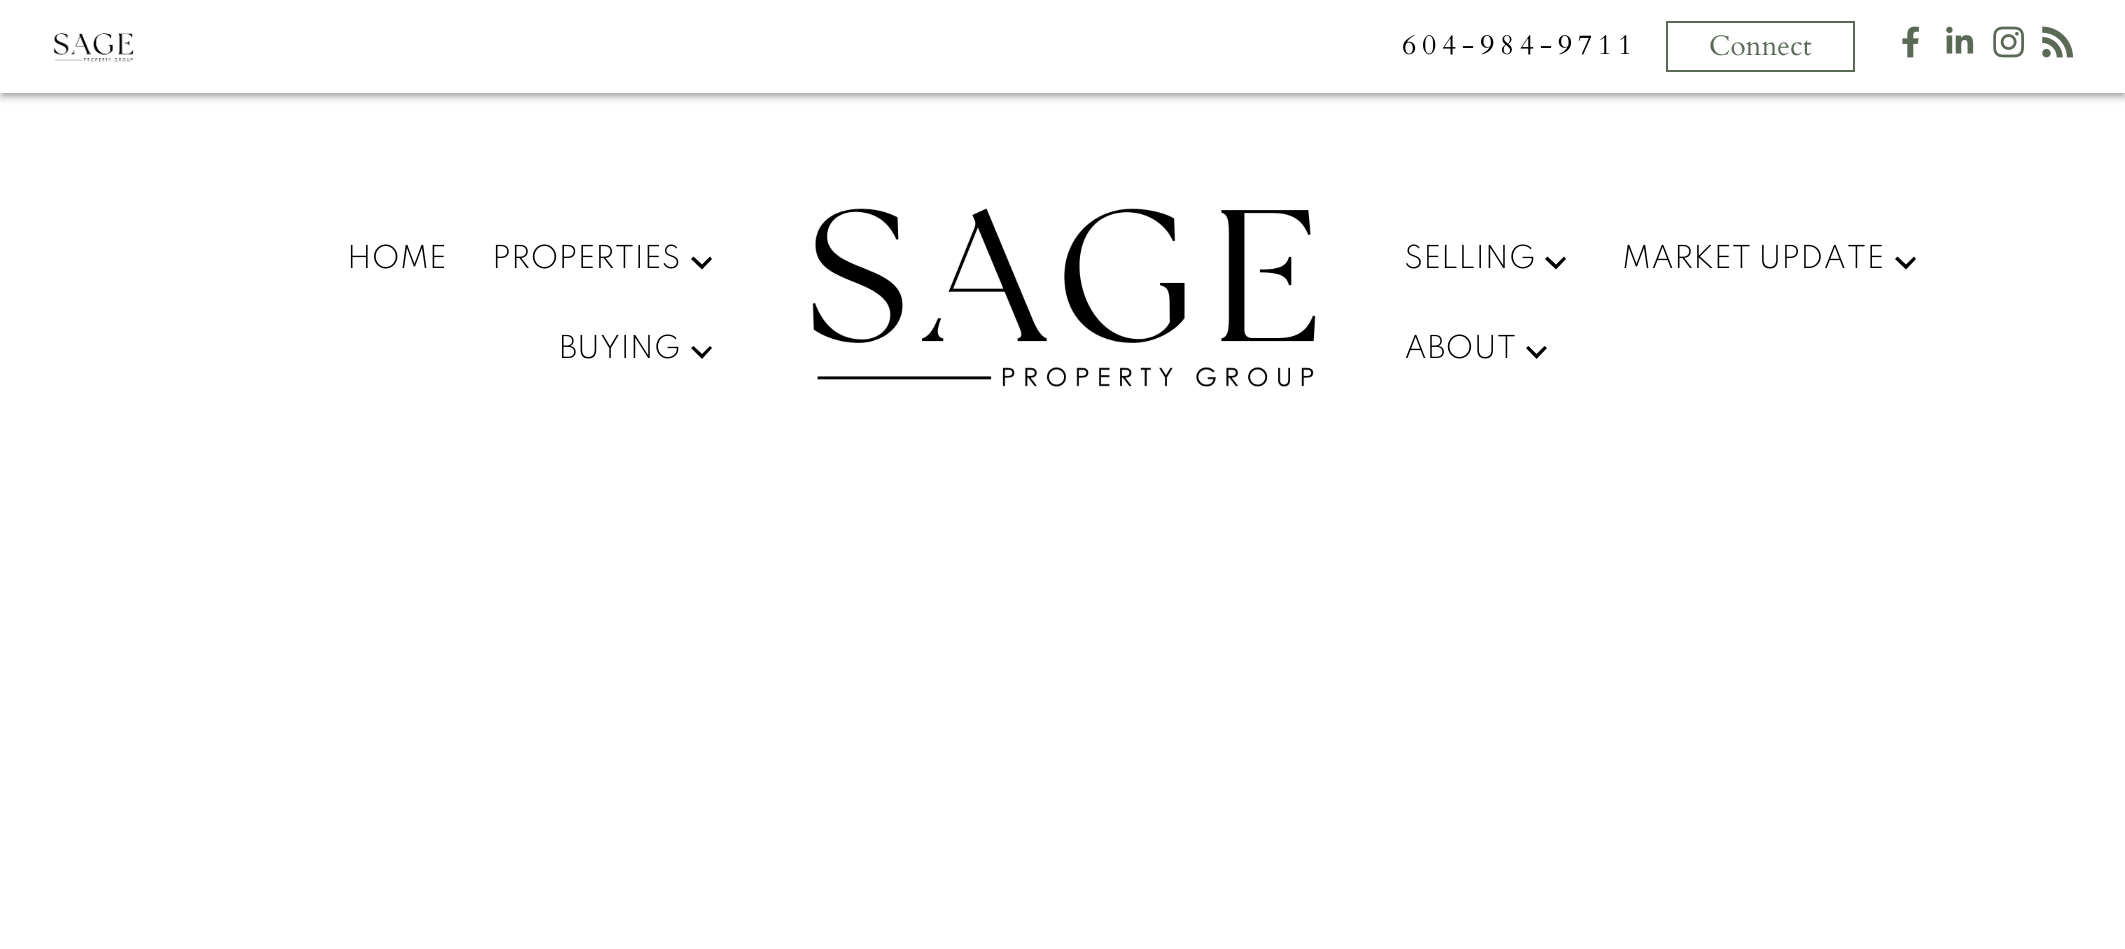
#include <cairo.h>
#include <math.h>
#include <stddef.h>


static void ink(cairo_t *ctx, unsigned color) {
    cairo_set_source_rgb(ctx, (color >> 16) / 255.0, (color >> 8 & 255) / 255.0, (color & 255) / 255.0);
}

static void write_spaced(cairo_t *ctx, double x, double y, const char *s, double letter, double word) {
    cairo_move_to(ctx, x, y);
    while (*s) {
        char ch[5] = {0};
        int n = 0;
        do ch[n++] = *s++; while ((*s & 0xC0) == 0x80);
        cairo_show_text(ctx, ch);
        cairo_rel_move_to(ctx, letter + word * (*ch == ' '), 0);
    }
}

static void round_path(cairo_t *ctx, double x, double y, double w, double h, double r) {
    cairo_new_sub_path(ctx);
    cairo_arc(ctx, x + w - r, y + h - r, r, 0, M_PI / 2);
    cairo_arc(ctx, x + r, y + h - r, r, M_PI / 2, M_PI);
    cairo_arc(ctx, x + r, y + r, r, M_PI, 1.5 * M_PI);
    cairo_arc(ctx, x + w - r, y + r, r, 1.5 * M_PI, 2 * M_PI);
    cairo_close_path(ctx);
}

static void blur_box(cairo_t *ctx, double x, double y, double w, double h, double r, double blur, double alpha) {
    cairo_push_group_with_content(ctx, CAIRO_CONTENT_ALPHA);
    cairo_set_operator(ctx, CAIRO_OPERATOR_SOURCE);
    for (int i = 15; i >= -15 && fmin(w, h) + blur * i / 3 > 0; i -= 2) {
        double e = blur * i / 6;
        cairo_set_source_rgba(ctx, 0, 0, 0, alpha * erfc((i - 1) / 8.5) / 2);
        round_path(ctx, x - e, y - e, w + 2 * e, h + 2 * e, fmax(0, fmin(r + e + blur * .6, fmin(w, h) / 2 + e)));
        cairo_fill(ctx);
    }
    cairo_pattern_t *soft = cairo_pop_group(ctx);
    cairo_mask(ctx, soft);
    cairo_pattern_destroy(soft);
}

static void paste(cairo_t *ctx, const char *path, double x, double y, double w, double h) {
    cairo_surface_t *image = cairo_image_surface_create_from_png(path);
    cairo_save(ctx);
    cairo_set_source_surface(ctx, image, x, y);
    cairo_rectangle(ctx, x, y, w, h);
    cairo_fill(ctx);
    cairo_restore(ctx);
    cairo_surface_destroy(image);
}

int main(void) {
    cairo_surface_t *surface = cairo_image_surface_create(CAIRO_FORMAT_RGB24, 2125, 949);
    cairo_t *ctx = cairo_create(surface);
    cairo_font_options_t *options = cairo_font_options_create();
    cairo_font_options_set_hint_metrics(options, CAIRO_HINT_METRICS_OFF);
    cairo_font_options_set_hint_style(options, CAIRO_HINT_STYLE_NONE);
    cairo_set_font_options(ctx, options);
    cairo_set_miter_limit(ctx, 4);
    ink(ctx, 0xFFFFFF);
    cairo_paint(ctx);
    ink(ctx, 0x000000);
    blur_box(ctx, 0, 2, 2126, 93, 0, 7, 0.12);
    blur_box(ctx, 0, 5, 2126, 93, 0, 3.5, 0.14);
    blur_box(ctx, 4, 9, 2119, 86, 0, 2.5, 0.2);
    ink(ctx, 0xFFFFFF);
    cairo_rectangle(ctx, 0, 0, 2125, 93);
    cairo_fill(ctx);
    paste(ctx, "media/1.png", 53, 33, 81, 29);
    cairo_select_font_face(ctx, "Cardo", CAIRO_FONT_SLANT_NORMAL, CAIRO_FONT_WEIGHT_NORMAL);
    cairo_set_font_size(ctx, 28);
    ink(ctx, 0x000000);
    write_spaced(ctx, 1402, 54, "604-984-9711", 5.6, 0);
    cairo_rectangle(ctx, 1667, 22, 187, 49);
    ink(ctx, 0x5B6A57);
    cairo_stroke(ctx);
    cairo_move_to(ctx, 1709, 55);
    cairo_show_text(ctx, "Connect");
    paste(ctx, "media/2.png", 1902, 26, 17, 32);
    paste(ctx, "media/3.png", 1946, 26, 28, 28);
    paste(ctx, "media/4.png", 1993, 26, 32, 32);
    paste(ctx, "media/5.png", 2042, 26, 31, 32);
    cairo_select_font_face(ctx, "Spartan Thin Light", CAIRO_FONT_SLANT_NORMAL, CAIRO_FONT_WEIGHT_NORMAL);
    ink(ctx, 0x000000);
    cairo_move_to(ctx, 347, 268);
    cairo_show_text(ctx, "HOME");
    cairo_move_to(ctx, 492, 268);
    cairo_show_text(ctx, "PROPERTIES");
    cairo_new_path(ctx);
    cairo_move_to(ctx, 710, 256.5);
    cairo_line_to(ctx, 702, 264.5);
    cairo_line_to(ctx, 693.5, 256.5);
    cairo_line_to(ctx, 691, 259);
    cairo_line_to(ctx, 702, 269.5);
    cairo_line_to(ctx, 712, 259);
    cairo_close_path(ctx);
    cairo_fill(ctx);
    cairo_move_to(ctx, 559, 358);
    cairo_show_text(ctx, "BUYING");
    cairo_new_path(ctx);
    cairo_move_to(ctx, 710, 346);
    cairo_line_to(ctx, 702, 354);
    cairo_line_to(ctx, 693.5, 346);
    cairo_line_to(ctx, 691, 348);
    cairo_line_to(ctx, 702, 359);
    cairo_line_to(ctx, 712, 348);
    cairo_close_path(ctx);
    cairo_fill(ctx);
    paste(ctx, "media/6.png", 812, 208, 504, 179);
    cairo_move_to(ctx, 1404, 268);
    cairo_show_text(ctx, "SELLING");
    cairo_new_path(ctx);
    cairo_move_to(ctx, 1564, 256.5);
    cairo_line_to(ctx, 1556, 264.5);
    cairo_line_to(ctx, 1547.5, 256.5);
    cairo_line_to(ctx, 1545, 259);
    cairo_line_to(ctx, 1556, 269.5);
    cairo_line_to(ctx, 1566, 259);
    cairo_close_path(ctx);
    cairo_fill(ctx);
    cairo_move_to(ctx, 1622, 268);
    cairo_show_text(ctx, "MARKET UPDATE");
    cairo_new_path(ctx);
    cairo_move_to(ctx, 1914, 256.5);
    cairo_line_to(ctx, 1906, 264.5);
    cairo_line_to(ctx, 1897.5, 256.5);
    cairo_line_to(ctx, 1895, 259);
    cairo_line_to(ctx, 1906, 269.5);
    cairo_line_to(ctx, 1916, 259);
    cairo_close_path(ctx);
    cairo_fill(ctx);
    cairo_move_to(ctx, 1404, 358);
    cairo_show_text(ctx, "ABOUT");
    cairo_new_path(ctx);
    cairo_move_to(ctx, 1544.5, 346);
    cairo_line_to(ctx, 1536.5, 354);
    cairo_line_to(ctx, 1528.5, 346);
    cairo_line_to(ctx, 1526, 348);
    cairo_line_to(ctx, 1536.5, 359);
    cairo_line_to(ctx, 1547, 348);
    cairo_close_path(ctx);
    cairo_fill(ctx);
    cairo_surface_write_to_png(surface, "image.png");
    cairo_font_options_destroy(options);
    cairo_destroy(ctx);
    cairo_surface_destroy(surface);
    return 0;
}
